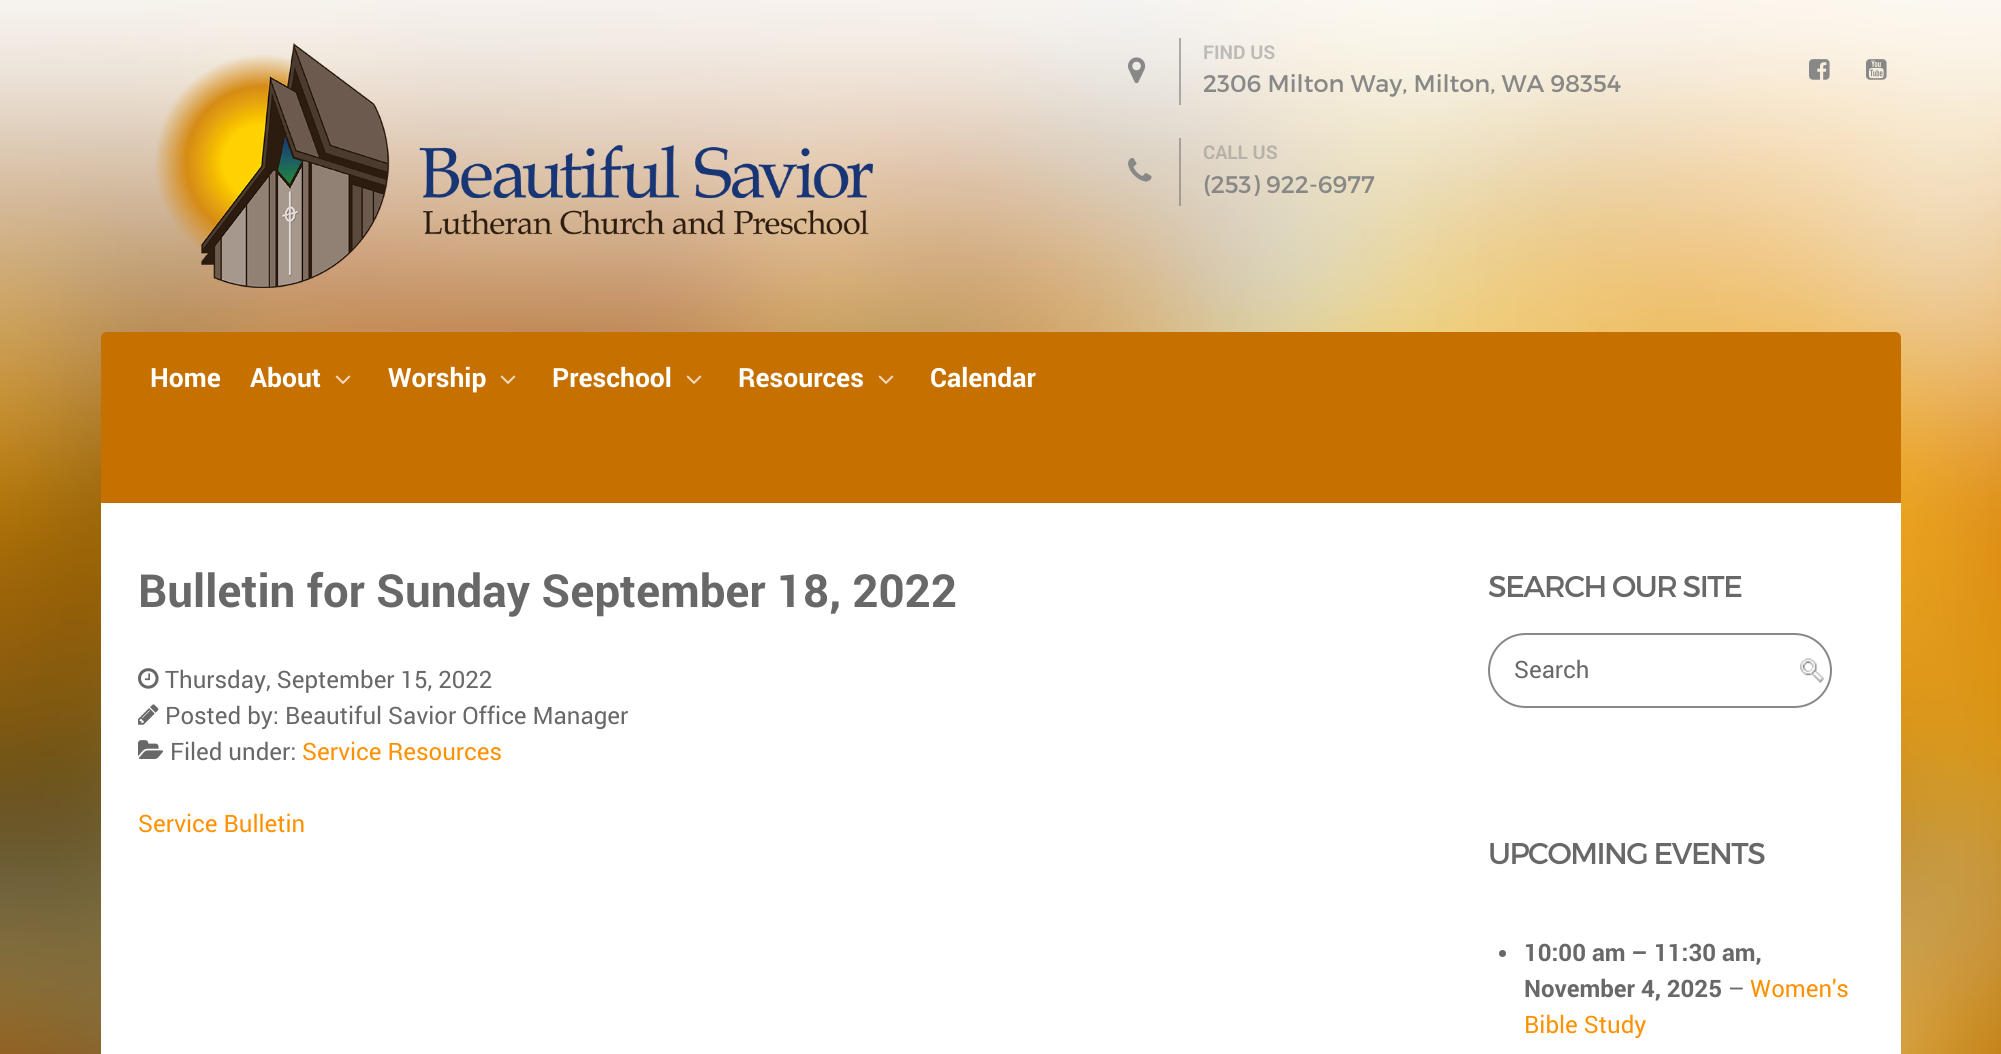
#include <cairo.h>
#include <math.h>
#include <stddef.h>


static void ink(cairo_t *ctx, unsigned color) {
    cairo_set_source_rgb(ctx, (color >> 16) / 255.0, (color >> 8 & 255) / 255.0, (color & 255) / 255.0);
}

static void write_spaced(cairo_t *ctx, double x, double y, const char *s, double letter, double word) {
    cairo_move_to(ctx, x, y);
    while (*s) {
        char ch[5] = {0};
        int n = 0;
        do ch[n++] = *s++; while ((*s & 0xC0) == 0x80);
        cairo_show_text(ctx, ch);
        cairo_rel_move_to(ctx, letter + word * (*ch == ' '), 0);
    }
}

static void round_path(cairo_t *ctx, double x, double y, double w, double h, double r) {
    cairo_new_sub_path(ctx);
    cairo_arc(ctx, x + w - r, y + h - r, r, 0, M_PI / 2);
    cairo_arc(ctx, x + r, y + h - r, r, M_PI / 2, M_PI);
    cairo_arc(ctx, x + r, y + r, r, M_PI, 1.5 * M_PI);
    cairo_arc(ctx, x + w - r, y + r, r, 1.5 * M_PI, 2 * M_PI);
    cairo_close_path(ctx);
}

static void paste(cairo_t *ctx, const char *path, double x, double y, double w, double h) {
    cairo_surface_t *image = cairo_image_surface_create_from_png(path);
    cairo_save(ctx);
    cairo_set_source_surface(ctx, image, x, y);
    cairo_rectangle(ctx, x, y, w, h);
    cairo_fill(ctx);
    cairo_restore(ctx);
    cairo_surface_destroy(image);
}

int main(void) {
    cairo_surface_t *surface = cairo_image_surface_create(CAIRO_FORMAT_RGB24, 2001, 1054);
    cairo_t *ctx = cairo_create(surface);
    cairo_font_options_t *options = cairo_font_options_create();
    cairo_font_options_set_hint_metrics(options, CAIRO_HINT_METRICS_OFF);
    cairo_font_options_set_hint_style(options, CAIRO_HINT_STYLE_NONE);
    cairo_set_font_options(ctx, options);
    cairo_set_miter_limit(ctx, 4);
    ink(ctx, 0xFFFFFF);
    cairo_paint(ctx);
    paste(ctx, "media/1.png", 0, 0, 2001, 1054);
    paste(ctx, "media/2.png", 155, 43, 718, 245);
    cairo_set_source_rgba(ctx, 0.408, 0.408, 0.408, 0.5);
    cairo_rectangle(ctx, 1179, 38, 2, 67);
    cairo_fill(ctx);
    paste(ctx, "media/3.png", 1128, 57, 18, 27);
    cairo_select_font_face(ctx, "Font", CAIRO_FONT_SLANT_NORMAL, CAIRO_FONT_WEIGHT_BOLD);
    cairo_set_font_size(ctx, 19);
    ink(ctx, 0xBEBBB7);
    cairo_move_to(ctx, 1203, 59);
    cairo_show_text(ctx, "FIND US");
    cairo_select_font_face(ctx, "Montserrat", CAIRO_FONT_SLANT_NORMAL, CAIRO_FONT_WEIGHT_NORMAL);
    cairo_set_font_size(ctx, 24);
    ink(ctx, 0x888888);
    cairo_move_to(ctx, 1203, 92);
    cairo_show_text(ctx, "2306 Milton Way, Milton, WA 98354");
    cairo_set_source_rgba(ctx, 0.408, 0.408, 0.408, 0.5);
    cairo_rectangle(ctx, 1179, 138, 2, 68);
    cairo_fill(ctx);
    paste(ctx, "media/4.png", 1128, 158, 24, 24);
    cairo_select_font_face(ctx, "Font", CAIRO_FONT_SLANT_NORMAL, CAIRO_FONT_WEIGHT_BOLD);
    cairo_set_font_size(ctx, 19);
    ink(ctx, 0xB6B2A9);
    cairo_move_to(ctx, 1203, 159);
    cairo_show_text(ctx, "CALL US");
    cairo_select_font_face(ctx, "Montserrat", CAIRO_FONT_SLANT_NORMAL, CAIRO_FONT_WEIGHT_NORMAL);
    cairo_set_font_size(ctx, 24);
    ink(ctx, 0x888888);
    cairo_move_to(ctx, 1203, 193);
    cairo_show_text(ctx, "(253) 922-6977");
    paste(ctx, "media/5.png", 1809, 59, 21, 21);
    paste(ctx, "media/6.png", 1866, 59, 21, 21);
    ink(ctx, 0xC67000);
    cairo_new_path(ctx);
    cairo_move_to(ctx, 107, 332);
    cairo_line_to(ctx, 1895, 332);
    cairo_curve_to(ctx, 1898.5, 332, 1901, 334.5, 1901, 338);
    cairo_line_to(ctx, 1901, 503);
    cairo_line_to(ctx, 101, 503);
    cairo_line_to(ctx, 101, 338);
    cairo_curve_to(ctx, 101, 334.5, 103.5, 332, 107, 332);
    cairo_close_path(ctx);
    cairo_fill(ctx);
    cairo_select_font_face(ctx, "Font", CAIRO_FONT_SLANT_NORMAL, CAIRO_FONT_WEIGHT_BOLD);
    cairo_set_font_size(ctx, 26.5);
    ink(ctx, 0xFFFFFF);
    cairo_move_to(ctx, 150, 387);
    cairo_show_text(ctx, "Home");
    cairo_move_to(ctx, 250, 387);
    cairo_show_text(ctx, "About");
    paste(ctx, "media/7.png", 335, 375, 16, 9);
    cairo_move_to(ctx, 388, 387);
    cairo_show_text(ctx, "Worship");
    paste(ctx, "media/7.png", 500, 375, 16, 9);
    cairo_move_to(ctx, 552, 387);
    cairo_show_text(ctx, "Preschool");
    paste(ctx, "media/7.png", 686, 375, 16, 9);
    cairo_move_to(ctx, 738, 387);
    cairo_show_text(ctx, "Resources");
    paste(ctx, "media/7.png", 878, 375, 16, 9);
    cairo_move_to(ctx, 930, 387);
    cairo_show_text(ctx, "Calendar");
    cairo_rectangle(ctx, 101, 503, 1800, 551);
    cairo_fill(ctx);
    cairo_set_font_size(ctx, 45.6);
    ink(ctx, 0x686868);
    cairo_move_to(ctx, 138, 607);
    cairo_show_text(ctx, "Bulletin for Sunday September 18, 2022");
    paste(ctx, "media/8.png", 138, 668, 21, 21);
    cairo_select_font_face(ctx, "Font", CAIRO_FONT_SLANT_NORMAL, CAIRO_FONT_WEIGHT_NORMAL);
    cairo_set_font_size(ctx, 24);
    cairo_move_to(ctx, 165, 688);
    cairo_show_text(ctx, "Thursday, September 15, 2022");
    paste(ctx, "media/9.png", 138, 704, 21, 21);
    cairo_move_to(ctx, 165, 724);
    cairo_show_text(ctx, "Posted by: Beautiful Savior Office Manager");
    paste(ctx, "media/10.png", 138, 740, 26, 19);
    cairo_move_to(ctx, 170, 760);
    cairo_show_text(ctx, "Filed under:");
    ink(ctx, 0xFF9000);
    cairo_move_to(ctx, 302, 760);
    cairo_show_text(ctx, "Service Resources");
    cairo_move_to(ctx, 138, 832);
    cairo_show_text(ctx, "Service Bulletin");
    cairo_select_font_face(ctx, "Montserrat", CAIRO_FONT_SLANT_NORMAL, CAIRO_FONT_WEIGHT_NORMAL);
    cairo_set_font_size(ctx, 30);
    ink(ctx, 0x686868);
    write_spaced(ctx, 1488, 597, "SEARCH OUR SITE", -1.5, 0);
    paste(ctx, "media/11.png", 1800, 658, 24, 25);
    round_path(ctx, 1489, 634, 342, 73, 36.5);
    ink(ctx, 0x888888);
    cairo_stroke(ctx);
    cairo_select_font_face(ctx, "Font", CAIRO_FONT_SLANT_NORMAL, CAIRO_FONT_WEIGHT_NORMAL);
    cairo_set_font_size(ctx, 24);
    ink(ctx, 0x686868);
    cairo_move_to(ctx, 1514, 678);
    cairo_show_text(ctx, "Search");
    cairo_select_font_face(ctx, "Montserrat", CAIRO_FONT_SLANT_NORMAL, CAIRO_FONT_WEIGHT_NORMAL);
    cairo_set_font_size(ctx, 30);
    write_spaced(ctx, 1488, 864, "UPCOMING EVENTS", -1.5, 0);
    cairo_new_path(ctx);
    cairo_arc(ctx, 1502.5, 953.5, 3.5, 0, 2 * M_PI);
    cairo_fill(ctx);
    cairo_select_font_face(ctx, "Font", CAIRO_FONT_SLANT_NORMAL, CAIRO_FONT_WEIGHT_BOLD);
    cairo_set_font_size(ctx, 24);
    cairo_move_to(ctx, 1524, 961);
    cairo_show_text(ctx, "10:00 am – 11:30 am,");
    cairo_move_to(ctx, 1524, 997);
    cairo_show_text(ctx, "November 4, 2025");
    cairo_select_font_face(ctx, "Font", CAIRO_FONT_SLANT_NORMAL, CAIRO_FONT_WEIGHT_NORMAL);
    cairo_move_to(ctx, 1728, 997);
    cairo_show_text(ctx, "–");
    ink(ctx, 0xFF9000);
    cairo_move_to(ctx, 1750, 997);
    cairo_show_text(ctx, "Women's");
    cairo_move_to(ctx, 1524, 1033);
    cairo_show_text(ctx, "Bible Study");
    cairo_surface_write_to_png(surface, "image.png");
    cairo_font_options_destroy(options);
    cairo_destroy(ctx);
    cairo_surface_destroy(surface);
    return 0;
}
